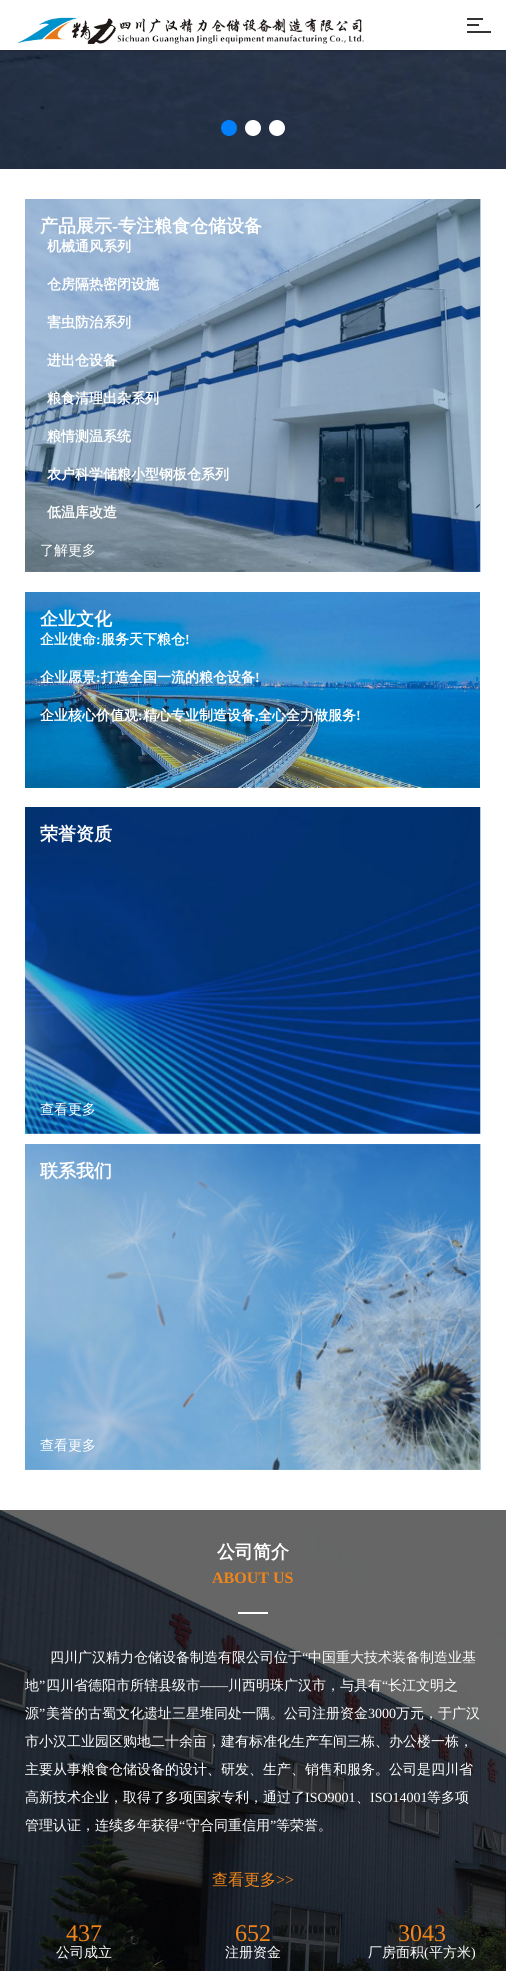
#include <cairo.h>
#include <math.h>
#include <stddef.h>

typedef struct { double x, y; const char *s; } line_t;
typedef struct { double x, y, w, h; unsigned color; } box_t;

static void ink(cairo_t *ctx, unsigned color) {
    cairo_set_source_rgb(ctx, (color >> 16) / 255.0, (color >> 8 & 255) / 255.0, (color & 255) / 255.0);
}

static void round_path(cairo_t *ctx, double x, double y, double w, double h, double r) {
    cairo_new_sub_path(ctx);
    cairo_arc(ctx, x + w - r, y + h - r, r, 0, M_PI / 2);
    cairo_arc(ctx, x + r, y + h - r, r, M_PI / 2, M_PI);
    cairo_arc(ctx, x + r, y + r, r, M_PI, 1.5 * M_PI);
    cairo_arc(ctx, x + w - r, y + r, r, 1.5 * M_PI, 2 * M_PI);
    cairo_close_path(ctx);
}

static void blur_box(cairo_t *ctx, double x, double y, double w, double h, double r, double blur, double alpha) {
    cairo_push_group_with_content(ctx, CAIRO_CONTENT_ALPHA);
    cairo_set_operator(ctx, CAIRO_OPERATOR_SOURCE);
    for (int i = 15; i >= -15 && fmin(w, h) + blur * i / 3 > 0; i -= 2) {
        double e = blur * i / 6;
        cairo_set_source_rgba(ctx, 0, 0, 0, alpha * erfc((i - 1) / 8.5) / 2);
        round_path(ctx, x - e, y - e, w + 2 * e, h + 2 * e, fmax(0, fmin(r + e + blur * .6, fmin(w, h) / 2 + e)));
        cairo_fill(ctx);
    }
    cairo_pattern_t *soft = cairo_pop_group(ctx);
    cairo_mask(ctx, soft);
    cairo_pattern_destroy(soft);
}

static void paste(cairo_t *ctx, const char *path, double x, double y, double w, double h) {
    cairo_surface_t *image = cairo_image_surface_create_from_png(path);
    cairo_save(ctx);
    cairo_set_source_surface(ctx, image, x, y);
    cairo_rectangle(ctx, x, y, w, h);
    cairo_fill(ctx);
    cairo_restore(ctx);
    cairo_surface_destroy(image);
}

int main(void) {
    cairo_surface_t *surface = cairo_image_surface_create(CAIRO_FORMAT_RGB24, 506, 1971);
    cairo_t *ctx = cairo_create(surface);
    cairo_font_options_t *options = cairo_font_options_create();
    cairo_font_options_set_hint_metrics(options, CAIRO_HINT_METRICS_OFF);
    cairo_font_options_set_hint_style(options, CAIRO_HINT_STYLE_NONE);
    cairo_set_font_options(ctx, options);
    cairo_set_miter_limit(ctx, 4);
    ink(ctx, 0xFFFFFF);
    cairo_paint(ctx);
    {
        static const box_t items[] = {
            {25, 1144, 456, 326, 0xB3CCE3},
            {25, 807, 456, 327, 0xB3CCE3},
            {25, 199, 456, 373, 0xB3CCE3},
        };
        for (size_t i = 0; i < sizeof items / sizeof *items; i++) {
            ink(ctx, items[i].color);
            cairo_rectangle(ctx, items[i].x, items[i].y, items[i].w, items[i].h);
            cairo_fill(ctx);
        }
    }
    paste(ctx, "media/2.png", 0, 50, 506, 119);
    ink(ctx, 0x000000);
    blur_box(ctx, 0, 0, 506, 50, 0, 1.5, 0.3);
    ink(ctx, 0xFFFFFF);
    cairo_rectangle(ctx, 0, 0, 506, 50);
    cairo_fill(ctx);
    paste(ctx, "media/1.png", 16, 17, 348, 27);
    {
        static const box_t items[] = {
            {467, 18, 16, 2, 0x333333},
            {467, 24, 12, 2, 0x333333},
            {467, 31, 24, 2, 0x333333},
        };
        for (size_t i = 0; i < sizeof items / sizeof *items; i++) {
            ink(ctx, items[i].color);
            cairo_rectangle(ctx, items[i].x, items[i].y, items[i].w, items[i].h);
            cairo_fill(ctx);
        }
    }
    ink(ctx, 0x0081FB);
    cairo_arc(ctx, 229, 128, 8, 0, 2 * M_PI);
    cairo_fill(ctx);
    ink(ctx, 0xFFFFFF);
    cairo_arc(ctx, 253, 128, 8, 0, 2 * M_PI);
    cairo_fill(ctx);
    cairo_arc(ctx, 277, 128, 8, 0, 2 * M_PI);
    cairo_fill(ctx);
    paste(ctx, "media/3.png", 25, 199, 455, 373);
    cairo_select_font_face(ctx, "WenQuanYi Zen Hei", CAIRO_FONT_SLANT_NORMAL, CAIRO_FONT_WEIGHT_BOLD);
    cairo_set_font_size(ctx, 18);
    cairo_move_to(ctx, 40, 232);
    cairo_show_text(ctx, "产品展示");
    cairo_select_font_face(ctx, "Liberation Serif", CAIRO_FONT_SLANT_NORMAL, CAIRO_FONT_WEIGHT_BOLD);
    cairo_move_to(ctx, 112, 232);
    cairo_show_text(ctx, "-");
    cairo_select_font_face(ctx, "WenQuanYi Zen Hei", CAIRO_FONT_SLANT_NORMAL, CAIRO_FONT_WEIGHT_BOLD);
    cairo_move_to(ctx, 118, 232);
    cairo_show_text(ctx, "专注粮食仓储设备");
    cairo_set_font_size(ctx, 14);
    {
        static const line_t items[] = {
            {47, 251, "机械通风系列"},
            {47, 289, "仓房隔热密闭设施"},
            {47, 327, "害虫防治系列"},
            {47, 365, "进出仓设备"},
            {47, 403, "粮食清理出杂系列"},
            {47, 441, "粮情测温系统"},
            {47, 479, "农户科学储粮小型钢板仓系列"},
            {47, 517, "低温库改造"},
        };
        for (size_t i = 0; i < sizeof items / sizeof *items; i++) {
            cairo_move_to(ctx, items[i].x, items[i].y);
            cairo_show_text(ctx, items[i].s);
        }
    }
    cairo_select_font_face(ctx, "WenQuanYi Zen Hei Medium", CAIRO_FONT_SLANT_NORMAL, CAIRO_FONT_WEIGHT_NORMAL);
    cairo_move_to(ctx, 40, 555);
    cairo_show_text(ctx, "了解更多");
    paste(ctx, "media/4.png", 25, 592, 455, 196);
    cairo_select_font_face(ctx, "WenQuanYi Zen Hei", CAIRO_FONT_SLANT_NORMAL, CAIRO_FONT_WEIGHT_BOLD);
    cairo_set_font_size(ctx, 18);
    cairo_move_to(ctx, 40, 625);
    cairo_show_text(ctx, "企业文化");
    cairo_set_font_size(ctx, 14);
    cairo_move_to(ctx, 40, 644);
    cairo_show_text(ctx, "企业使命");
    cairo_select_font_face(ctx, "Liberation Serif", CAIRO_FONT_SLANT_NORMAL, CAIRO_FONT_WEIGHT_BOLD);
    cairo_move_to(ctx, 96, 644);
    cairo_show_text(ctx, ":");
    cairo_select_font_face(ctx, "WenQuanYi Zen Hei", CAIRO_FONT_SLANT_NORMAL, CAIRO_FONT_WEIGHT_BOLD);
    cairo_move_to(ctx, 101, 644);
    cairo_show_text(ctx, "服务天下粮仓");
    cairo_select_font_face(ctx, "Liberation Serif", CAIRO_FONT_SLANT_NORMAL, CAIRO_FONT_WEIGHT_BOLD);
    cairo_move_to(ctx, 185, 644);
    cairo_show_text(ctx, "!");
    cairo_select_font_face(ctx, "WenQuanYi Zen Hei", CAIRO_FONT_SLANT_NORMAL, CAIRO_FONT_WEIGHT_BOLD);
    cairo_move_to(ctx, 40, 682);
    cairo_show_text(ctx, "企业愿景");
    cairo_select_font_face(ctx, "Liberation Serif", CAIRO_FONT_SLANT_NORMAL, CAIRO_FONT_WEIGHT_BOLD);
    cairo_move_to(ctx, 96, 682);
    cairo_show_text(ctx, ":");
    cairo_select_font_face(ctx, "WenQuanYi Zen Hei", CAIRO_FONT_SLANT_NORMAL, CAIRO_FONT_WEIGHT_BOLD);
    cairo_move_to(ctx, 101, 682);
    cairo_show_text(ctx, "打造全国一流的粮仓设备");
    cairo_select_font_face(ctx, "Liberation Serif", CAIRO_FONT_SLANT_NORMAL, CAIRO_FONT_WEIGHT_BOLD);
    cairo_move_to(ctx, 255, 682);
    cairo_show_text(ctx, "!");
    cairo_select_font_face(ctx, "WenQuanYi Zen Hei", CAIRO_FONT_SLANT_NORMAL, CAIRO_FONT_WEIGHT_BOLD);
    cairo_move_to(ctx, 40, 720);
    cairo_show_text(ctx, "企业核心价值观");
    cairo_select_font_face(ctx, "Liberation Serif", CAIRO_FONT_SLANT_NORMAL, CAIRO_FONT_WEIGHT_BOLD);
    cairo_move_to(ctx, 138, 720);
    cairo_show_text(ctx, ":");
    cairo_select_font_face(ctx, "WenQuanYi Zen Hei", CAIRO_FONT_SLANT_NORMAL, CAIRO_FONT_WEIGHT_BOLD);
    cairo_move_to(ctx, 143, 720);
    cairo_show_text(ctx, "精心专业制造设备");
    cairo_select_font_face(ctx, "Liberation Serif", CAIRO_FONT_SLANT_NORMAL, CAIRO_FONT_WEIGHT_BOLD);
    cairo_move_to(ctx, 255, 720);
    cairo_show_text(ctx, ",");
    cairo_select_font_face(ctx, "WenQuanYi Zen Hei", CAIRO_FONT_SLANT_NORMAL, CAIRO_FONT_WEIGHT_BOLD);
    cairo_move_to(ctx, 258, 720);
    cairo_show_text(ctx, "全心全力做服务");
    cairo_select_font_face(ctx, "Liberation Serif", CAIRO_FONT_SLANT_NORMAL, CAIRO_FONT_WEIGHT_BOLD);
    cairo_move_to(ctx, 356, 720);
    cairo_show_text(ctx, "!");
    paste(ctx, "media/5.png", 25, 807, 455, 327);
    cairo_select_font_face(ctx, "WenQuanYi Zen Hei", CAIRO_FONT_SLANT_NORMAL, CAIRO_FONT_WEIGHT_BOLD);
    cairo_set_font_size(ctx, 18);
    cairo_move_to(ctx, 40, 840);
    cairo_show_text(ctx, "荣誉资质");
    cairo_select_font_face(ctx, "WenQuanYi Zen Hei Medium", CAIRO_FONT_SLANT_NORMAL, CAIRO_FONT_WEIGHT_NORMAL);
    cairo_set_font_size(ctx, 14);
    cairo_move_to(ctx, 40, 1114);
    cairo_show_text(ctx, "查看更多");
    paste(ctx, "media/6.png", 25, 1144, 455, 326);
    cairo_select_font_face(ctx, "WenQuanYi Zen Hei", CAIRO_FONT_SLANT_NORMAL, CAIRO_FONT_WEIGHT_BOLD);
    cairo_set_font_size(ctx, 18);
    cairo_move_to(ctx, 40, 1177);
    cairo_show_text(ctx, "联系我们");
    cairo_select_font_face(ctx, "WenQuanYi Zen Hei Medium", CAIRO_FONT_SLANT_NORMAL, CAIRO_FONT_WEIGHT_NORMAL);
    cairo_set_font_size(ctx, 14);
    cairo_move_to(ctx, 40, 1450);
    cairo_show_text(ctx, "查看更多");
    paste(ctx, "media/7.png", 0, 1510, 506, 461);
    cairo_select_font_face(ctx, "WenQuanYi Zen Hei", CAIRO_FONT_SLANT_NORMAL, CAIRO_FONT_WEIGHT_BOLD);
    cairo_set_font_size(ctx, 18);
    cairo_move_to(ctx, 217, 1558);
    cairo_show_text(ctx, "公司简介");
    cairo_select_font_face(ctx, "Liberation Serif", CAIRO_FONT_SLANT_NORMAL, CAIRO_FONT_WEIGHT_BOLD);
    cairo_set_font_size(ctx, 16);
    ink(ctx, 0xF08519);
    cairo_move_to(ctx, 212, 1583);
    cairo_show_text(ctx, "ABOUT US");
    ink(ctx, 0xFFFFFF);
    cairo_rectangle(ctx, 238, 1612, 30, 2);
    cairo_fill(ctx);
    cairo_select_font_face(ctx, "WenQuanYi Zen Hei Medium", CAIRO_FONT_SLANT_NORMAL, CAIRO_FONT_WEIGHT_NORMAL);
    cairo_set_font_size(ctx, 14);
    cairo_move_to(ctx, 50, 1662);
    cairo_show_text(ctx, "四川广汉精力仓储设备制造有限公司位于");
    cairo_select_font_face(ctx, "Liberation Serif", CAIRO_FONT_SLANT_NORMAL, CAIRO_FONT_WEIGHT_NORMAL);
    cairo_move_to(ctx, 302, 1662);
    cairo_show_text(ctx, "“");
    cairo_select_font_face(ctx, "WenQuanYi Zen Hei Medium", CAIRO_FONT_SLANT_NORMAL, CAIRO_FONT_WEIGHT_NORMAL);
    cairo_move_to(ctx, 308, 1662);
    cairo_show_text(ctx, "中国重大技术装备制造业基");
    cairo_move_to(ctx, 25, 1690);
    cairo_show_text(ctx, "地");
    cairo_select_font_face(ctx, "Liberation Serif", CAIRO_FONT_SLANT_NORMAL, CAIRO_FONT_WEIGHT_NORMAL);
    cairo_move_to(ctx, 39, 1690);
    cairo_show_text(ctx, "”");
    cairo_select_font_face(ctx, "WenQuanYi Zen Hei Medium", CAIRO_FONT_SLANT_NORMAL, CAIRO_FONT_WEIGHT_NORMAL);
    cairo_move_to(ctx, 46, 1690);
    cairo_show_text(ctx, "四川省德阳市所辖县级市");
    cairo_move_to(ctx, 228, 1690);
    cairo_show_text(ctx, "川西明珠广汉市，与具有");
    cairo_select_font_face(ctx, "Liberation Serif", CAIRO_FONT_SLANT_NORMAL, CAIRO_FONT_WEIGHT_NORMAL);
    cairo_move_to(ctx, 382, 1690);
    cairo_show_text(ctx, "“");
    cairo_select_font_face(ctx, "WenQuanYi Zen Hei Medium", CAIRO_FONT_SLANT_NORMAL, CAIRO_FONT_WEIGHT_NORMAL);
    cairo_move_to(ctx, 388, 1690);
    cairo_show_text(ctx, "长江文明之");
    cairo_select_font_face(ctx, "Liberation Serif", CAIRO_FONT_SLANT_NORMAL, CAIRO_FONT_WEIGHT_NORMAL);
    cairo_move_to(ctx, 200, 1690);
    cairo_show_text(ctx, "——");
    cairo_select_font_face(ctx, "WenQuanYi Zen Hei Medium", CAIRO_FONT_SLANT_NORMAL, CAIRO_FONT_WEIGHT_NORMAL);
    cairo_move_to(ctx, 25, 1718);
    cairo_show_text(ctx, "源");
    cairo_select_font_face(ctx, "Liberation Serif", CAIRO_FONT_SLANT_NORMAL, CAIRO_FONT_WEIGHT_NORMAL);
    cairo_move_to(ctx, 39, 1718);
    cairo_show_text(ctx, "”");
    cairo_select_font_face(ctx, "WenQuanYi Zen Hei Medium", CAIRO_FONT_SLANT_NORMAL, CAIRO_FONT_WEIGHT_NORMAL);
    cairo_move_to(ctx, 46, 1718);
    cairo_show_text(ctx, "美誉的古蜀文化遗址三星堆同处一隅。公司注册资金");
    cairo_select_font_face(ctx, "Liberation Serif", CAIRO_FONT_SLANT_NORMAL, CAIRO_FONT_WEIGHT_NORMAL);
    cairo_move_to(ctx, 368, 1718);
    cairo_show_text(ctx, "3000");
    cairo_select_font_face(ctx, "WenQuanYi Zen Hei Medium", CAIRO_FONT_SLANT_NORMAL, CAIRO_FONT_WEIGHT_NORMAL);
    {
        static const line_t items[] = {
            {396, 1718, "万元，于广汉"},
            {25, 1746, "市小汉工业园区购地二十余亩，建有标准化生产车间三栋、办公楼一栋，"},
            {25, 1774, "主要从事粮食仓储设备的设计、研发、生产、销售和服务。公司是四川省"},
            {25, 1802, "高新技术企业，取得了多项国家专利，通过了"},
        };
        for (size_t i = 0; i < sizeof items / sizeof *items; i++) {
            cairo_move_to(ctx, items[i].x, items[i].y);
            cairo_show_text(ctx, items[i].s);
        }
    }
    cairo_select_font_face(ctx, "Liberation Serif", CAIRO_FONT_SLANT_NORMAL, CAIRO_FONT_WEIGHT_NORMAL);
    cairo_move_to(ctx, 305, 1802);
    cairo_show_text(ctx, "ISO9001");
    cairo_select_font_face(ctx, "WenQuanYi Zen Hei Medium", CAIRO_FONT_SLANT_NORMAL, CAIRO_FONT_WEIGHT_NORMAL);
    cairo_move_to(ctx, 356, 1802);
    cairo_show_text(ctx, "、");
    cairo_select_font_face(ctx, "Liberation Serif", CAIRO_FONT_SLANT_NORMAL, CAIRO_FONT_WEIGHT_NORMAL);
    cairo_move_to(ctx, 370, 1802);
    cairo_show_text(ctx, "ISO14001");
    cairo_select_font_face(ctx, "WenQuanYi Zen Hei Medium", CAIRO_FONT_SLANT_NORMAL, CAIRO_FONT_WEIGHT_NORMAL);
    cairo_move_to(ctx, 427, 1802);
    cairo_show_text(ctx, "等多项");
    cairo_move_to(ctx, 25, 1830);
    cairo_show_text(ctx, "管理认证，连续多年获得");
    cairo_select_font_face(ctx, "Liberation Serif", CAIRO_FONT_SLANT_NORMAL, CAIRO_FONT_WEIGHT_NORMAL);
    cairo_move_to(ctx, 179, 1830);
    cairo_show_text(ctx, "“");
    cairo_select_font_face(ctx, "WenQuanYi Zen Hei Medium", CAIRO_FONT_SLANT_NORMAL, CAIRO_FONT_WEIGHT_NORMAL);
    cairo_move_to(ctx, 186, 1830);
    cairo_show_text(ctx, "守合同重信用");
    cairo_select_font_face(ctx, "Liberation Serif", CAIRO_FONT_SLANT_NORMAL, CAIRO_FONT_WEIGHT_NORMAL);
    cairo_move_to(ctx, 270, 1830);
    cairo_show_text(ctx, "”");
    cairo_select_font_face(ctx, "WenQuanYi Zen Hei Medium", CAIRO_FONT_SLANT_NORMAL, CAIRO_FONT_WEIGHT_NORMAL);
    cairo_move_to(ctx, 276, 1830);
    cairo_show_text(ctx, "等荣誉。");
    cairo_set_font_size(ctx, 16);
    ink(ctx, 0xF08519);
    cairo_move_to(ctx, 212, 1885);
    cairo_show_text(ctx, "查看更多");
    cairo_select_font_face(ctx, "Liberation Serif", CAIRO_FONT_SLANT_NORMAL, CAIRO_FONT_WEIGHT_NORMAL);
    cairo_move_to(ctx, 276, 1885);
    cairo_show_text(ctx, ">>");
    cairo_set_font_size(ctx, 24);
    cairo_move_to(ctx, 66, 1941);
    cairo_show_text(ctx, "437");
    cairo_select_font_face(ctx, "WenQuanYi Zen Hei Medium", CAIRO_FONT_SLANT_NORMAL, CAIRO_FONT_WEIGHT_NORMAL);
    cairo_set_font_size(ctx, 14);
    ink(ctx, 0xFFFFFF);
    cairo_move_to(ctx, 56, 1957);
    cairo_show_text(ctx, "公司成立");
    cairo_select_font_face(ctx, "Liberation Serif", CAIRO_FONT_SLANT_NORMAL, CAIRO_FONT_WEIGHT_NORMAL);
    cairo_set_font_size(ctx, 24);
    ink(ctx, 0xF08519);
    cairo_move_to(ctx, 235, 1941);
    cairo_show_text(ctx, "652");
    cairo_select_font_face(ctx, "WenQuanYi Zen Hei Medium", CAIRO_FONT_SLANT_NORMAL, CAIRO_FONT_WEIGHT_NORMAL);
    cairo_set_font_size(ctx, 14);
    ink(ctx, 0xFFFFFF);
    cairo_move_to(ctx, 225, 1957);
    cairo_show_text(ctx, "注册资金");
    cairo_select_font_face(ctx, "Liberation Serif", CAIRO_FONT_SLANT_NORMAL, CAIRO_FONT_WEIGHT_NORMAL);
    cairo_set_font_size(ctx, 24);
    ink(ctx, 0xF08519);
    cairo_move_to(ctx, 398, 1941);
    cairo_show_text(ctx, "3043");
    cairo_select_font_face(ctx, "WenQuanYi Zen Hei Medium", CAIRO_FONT_SLANT_NORMAL, CAIRO_FONT_WEIGHT_NORMAL);
    cairo_set_font_size(ctx, 14);
    ink(ctx, 0xFFFFFF);
    cairo_move_to(ctx, 368, 1957);
    cairo_show_text(ctx, "厂房面积");
    cairo_select_font_face(ctx, "Liberation Serif", CAIRO_FONT_SLANT_NORMAL, CAIRO_FONT_WEIGHT_NORMAL);
    cairo_move_to(ctx, 424, 1957);
    cairo_show_text(ctx, "(");
    cairo_select_font_face(ctx, "WenQuanYi Zen Hei Medium", CAIRO_FONT_SLANT_NORMAL, CAIRO_FONT_WEIGHT_NORMAL);
    cairo_move_to(ctx, 429, 1957);
    cairo_show_text(ctx, "平方米");
    cairo_select_font_face(ctx, "Liberation Serif", CAIRO_FONT_SLANT_NORMAL, CAIRO_FONT_WEIGHT_NORMAL);
    cairo_move_to(ctx, 471, 1957);
    cairo_show_text(ctx, ")");
    cairo_surface_write_to_png(surface, "image.png");
    cairo_font_options_destroy(options);
    cairo_destroy(ctx);
    cairo_surface_destroy(surface);
    return 0;
}
